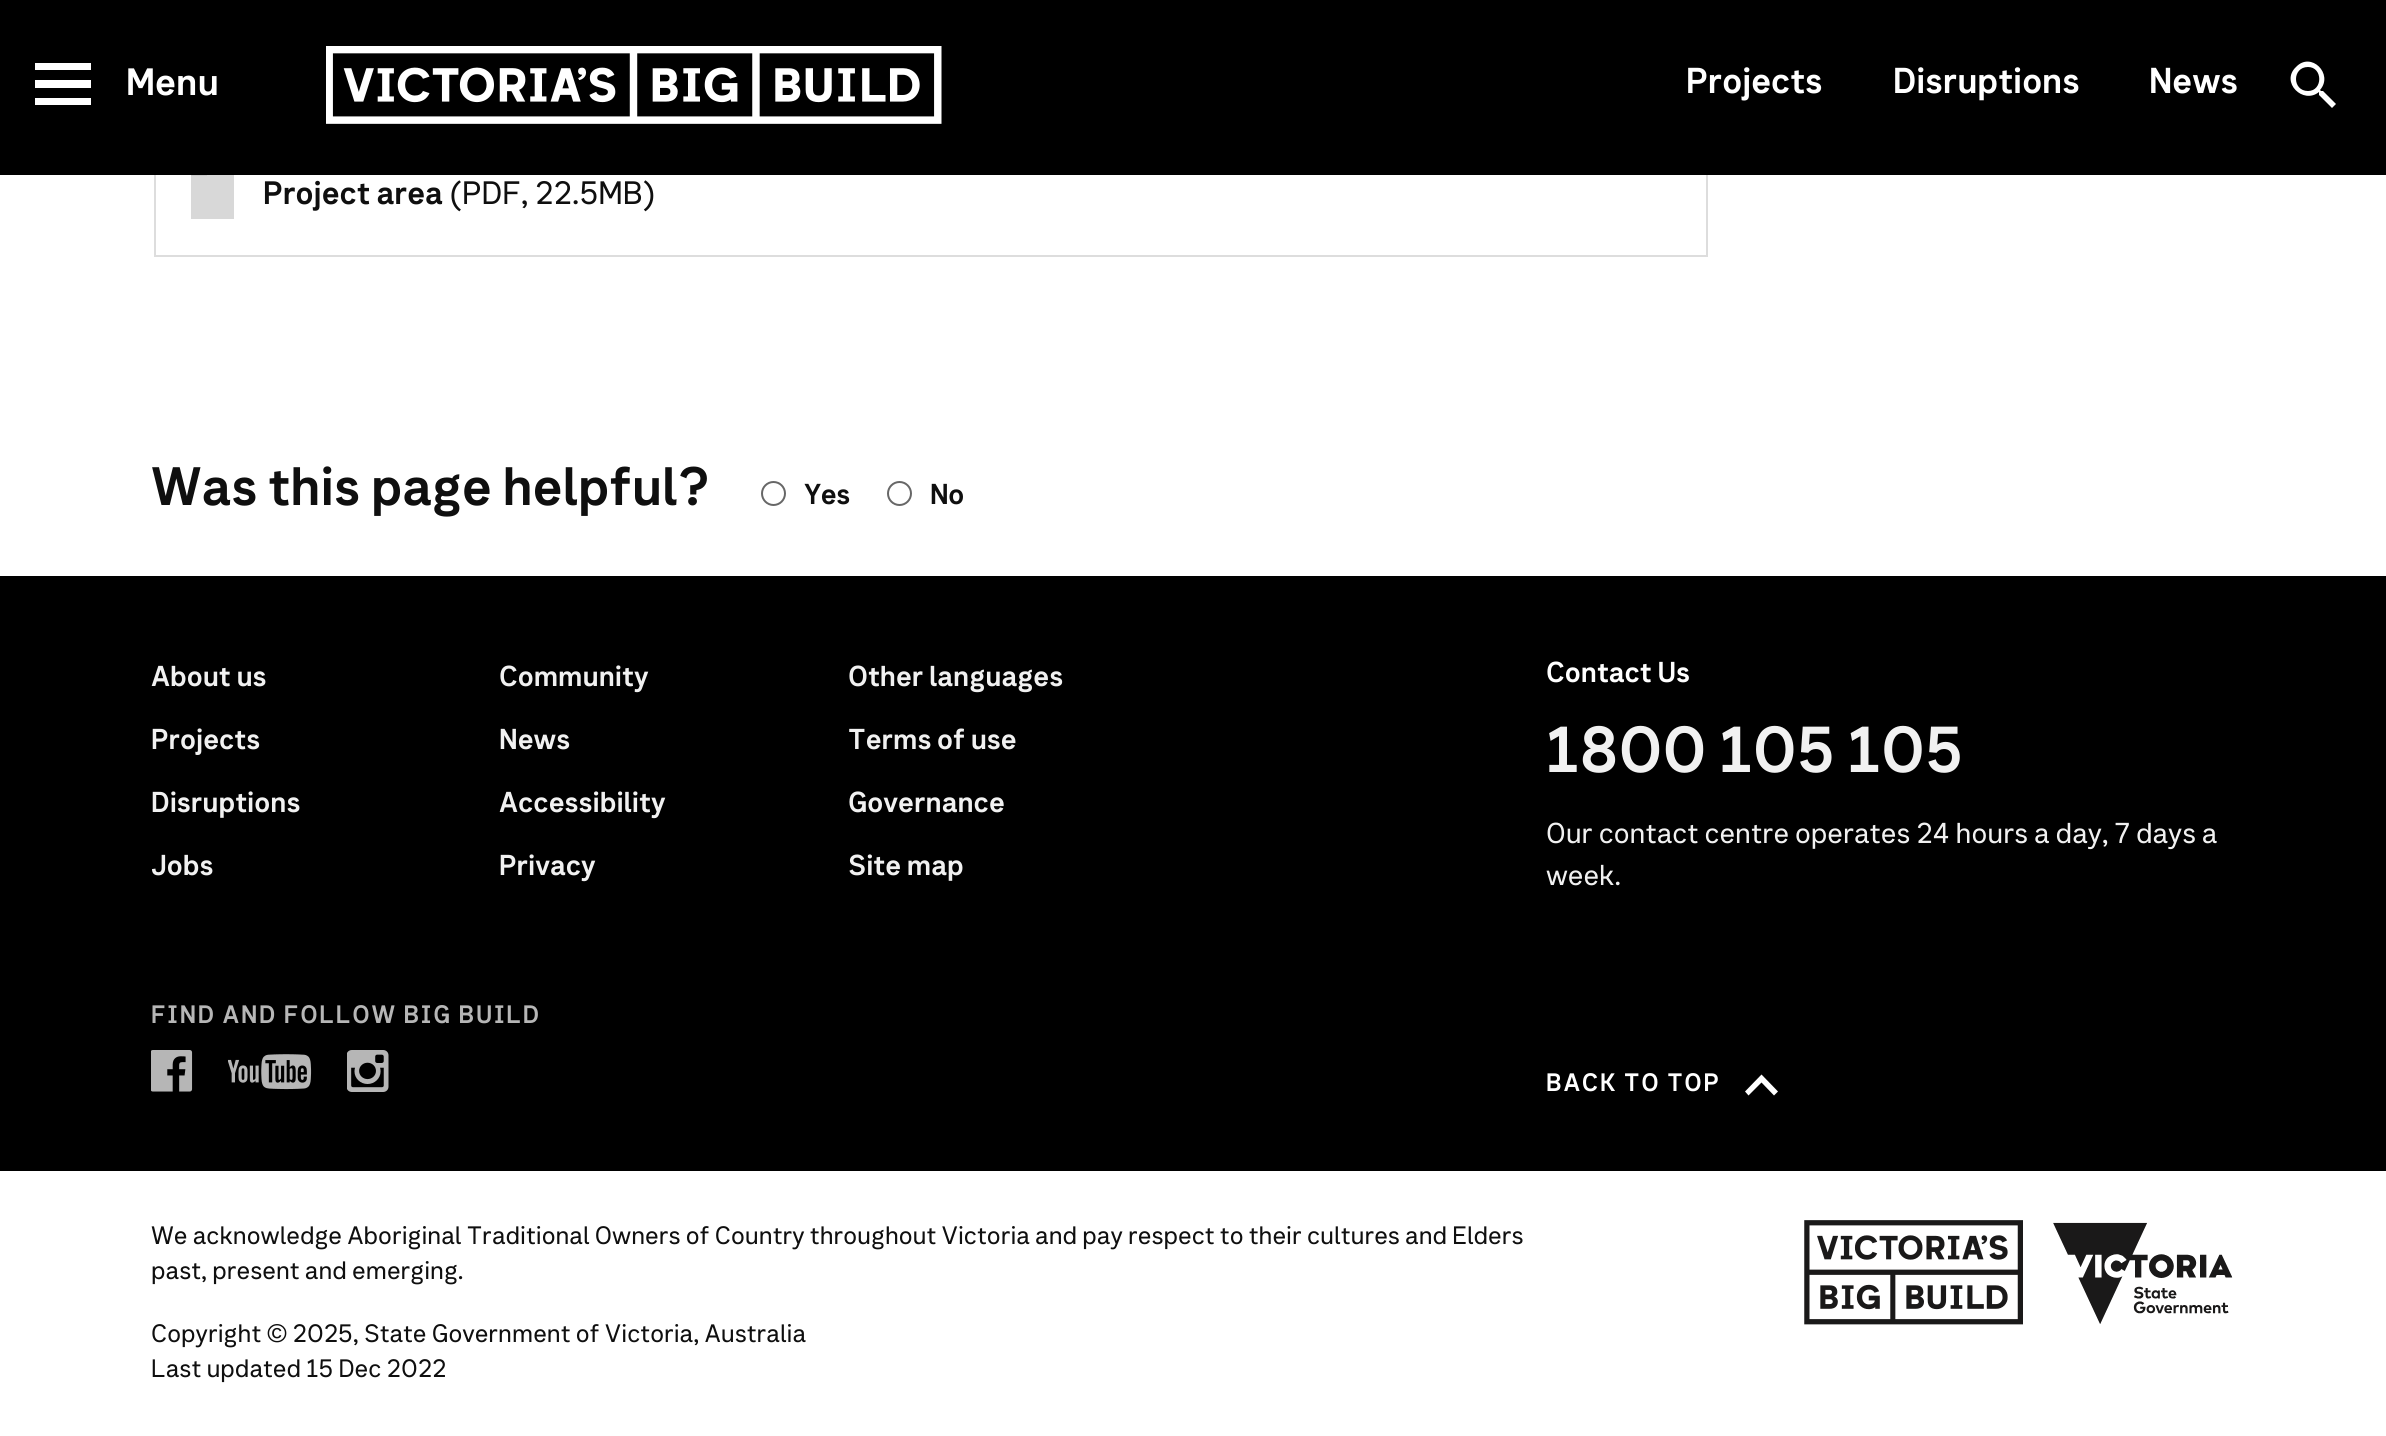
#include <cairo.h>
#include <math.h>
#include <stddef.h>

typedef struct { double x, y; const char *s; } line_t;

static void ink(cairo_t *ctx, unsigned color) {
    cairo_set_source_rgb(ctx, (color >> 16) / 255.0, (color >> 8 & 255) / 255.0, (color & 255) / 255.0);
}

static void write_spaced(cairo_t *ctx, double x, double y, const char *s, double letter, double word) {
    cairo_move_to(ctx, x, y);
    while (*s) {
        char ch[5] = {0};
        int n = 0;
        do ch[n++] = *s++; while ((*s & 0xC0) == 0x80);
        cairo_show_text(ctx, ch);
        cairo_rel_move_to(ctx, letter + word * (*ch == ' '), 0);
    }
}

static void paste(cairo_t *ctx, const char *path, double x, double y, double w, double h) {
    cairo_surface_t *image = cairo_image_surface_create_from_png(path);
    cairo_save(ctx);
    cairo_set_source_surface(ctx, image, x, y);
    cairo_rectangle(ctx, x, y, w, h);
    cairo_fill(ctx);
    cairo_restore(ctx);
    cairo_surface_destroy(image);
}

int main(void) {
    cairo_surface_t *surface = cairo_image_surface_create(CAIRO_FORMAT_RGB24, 2386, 1436);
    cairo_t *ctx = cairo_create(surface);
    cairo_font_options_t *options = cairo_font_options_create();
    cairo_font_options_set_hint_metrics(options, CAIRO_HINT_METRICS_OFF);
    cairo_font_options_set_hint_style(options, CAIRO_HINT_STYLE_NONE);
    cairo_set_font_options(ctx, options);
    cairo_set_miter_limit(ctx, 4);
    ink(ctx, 0xFFFFFF);
    cairo_paint(ctx);
    cairo_rectangle(ctx, 155, 124, 1552, 132);
    ink(ctx, 0xDDDDDD);
    cairo_stroke(ctx);
    ink(ctx, 0xD8D8D8);
    cairo_set_fill_rule(ctx, CAIRO_FILL_RULE_EVEN_ODD);
    cairo_new_path(ctx);
    cairo_move_to(ctx, 191, 219);
    cairo_line_to(ctx, 234, 219);
    cairo_line_to(ctx, 234, 159);
    cairo_line_to(ctx, 207, 159);
    cairo_line_to(ctx, 191, 175);
    cairo_close_path(ctx);
    cairo_fill(ctx);
    ink(ctx, 0xBEBEBE);
    cairo_new_path(ctx);
    cairo_move_to(ctx, 207, 159);
    cairo_line_to(ctx, 207, 175.5);
    cairo_line_to(ctx, 191, 175.5);
    cairo_close_path(ctx);
    cairo_fill(ctx);
    ink(ctx, 0x000000);
    cairo_rectangle(ctx, 0, 0, 2386, 175);
    cairo_fill(ctx);
    ink(ctx, 0xFFFFFF);
    cairo_new_path(ctx);
    cairo_move_to(ctx, 35, 105);
    cairo_line_to(ctx, 91, 105);
    cairo_line_to(ctx, 91, 98);
    cairo_line_to(ctx, 35, 98);
    cairo_close_path(ctx);
    cairo_move_to(ctx, 35, 88);
    cairo_line_to(ctx, 91, 88);
    cairo_line_to(ctx, 91, 80);
    cairo_line_to(ctx, 35, 80);
    cairo_close_path(ctx);
    cairo_move_to(ctx, 35, 70);
    cairo_line_to(ctx, 91, 70);
    cairo_line_to(ctx, 91, 63);
    cairo_line_to(ctx, 35, 63);
    cairo_close_path(ctx);
    cairo_fill(ctx);
    cairo_select_font_face(ctx, "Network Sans", CAIRO_FONT_SLANT_NORMAL, CAIRO_FONT_WEIGHT_BOLD);
    cairo_set_font_size(ctx, 37);
    cairo_move_to(ctx, 126, 95);
    cairo_show_text(ctx, "Menu");
    paste(ctx, "media/1.png", 326, 46, 616, 78);
    cairo_set_font_size(ctx, 35);
    {
        static const line_t items[] = {
            {1686, 93, "Projects"},
            {1893, 93, "Disruptions"},
            {2149, 93, "News"},
        };
        for (size_t i = 0; i < sizeof items / sizeof *items; i++) {
            cairo_move_to(ctx, items[i].x, items[i].y);
            cairo_show_text(ctx, items[i].s);
        }
    }
    cairo_new_path(ctx);
    cairo_move_to(ctx, 2323, 91);
    cairo_line_to(ctx, 2321, 91);
    cairo_line_to(ctx, 2320, 90);
    cairo_curve_to(ctx, 2334, 74, 2311, 51, 2296, 67);
    cairo_curve_to(ctx, 2280, 82, 2303, 105, 2319, 92);
    cairo_line_to(ctx, 2319, 93);
    cairo_line_to(ctx, 2319, 95);
    cairo_line_to(ctx, 2332, 108);
    cairo_line_to(ctx, 2336, 104);
    cairo_close_path(ctx);
    cairo_move_to(ctx, 2308, 91);
    cairo_curve_to(ctx, 2292, 91, 2292, 67, 2308, 67);
    cairo_curve_to(ctx, 2323, 67, 2323, 91, 2308, 91);
    cairo_close_path(ctx);
    cairo_fill(ctx);
    cairo_set_font_size(ctx, 31.5);
    ink(ctx, 0x0F0F0F);
    cairo_move_to(ctx, 263, 204);
    cairo_show_text(ctx, "Project area");
    cairo_select_font_face(ctx, "Network Sans", CAIRO_FONT_SLANT_NORMAL, CAIRO_FONT_WEIGHT_NORMAL);
    cairo_move_to(ctx, 449, 204);
    cairo_show_text(ctx, "(PDF, 22.5MB)");
    cairo_select_font_face(ctx, "Network Sans", CAIRO_FONT_SLANT_NORMAL, CAIRO_FONT_WEIGHT_BOLD);
    cairo_set_font_size(ctx, 52.5);
    cairo_move_to(ctx, 151, 505);
    cairo_show_text(ctx, "Was this page helpful?");
    cairo_new_path(ctx);
    cairo_arc(ctx, 773.5, 493.5, 11.5, 0, 2 * M_PI);
    ink(ctx, 0x676767);
    cairo_stroke(ctx);
    cairo_set_font_size(ctx, 28);
    ink(ctx, 0x0F0F0F);
    write_spaced(ctx, 804, 504, "Yes", -0.5, 0);
    cairo_new_path(ctx);
    cairo_arc(ctx, 899.5, 493.5, 11.5, 0, 2 * M_PI);
    ink(ctx, 0x676767);
    cairo_stroke(ctx);
    ink(ctx, 0x0F0F0F);
    write_spaced(ctx, 930, 504, "No", -0.5, 0);
    ink(ctx, 0x000000);
    cairo_rectangle(ctx, 0, 576, 2386, 595);
    cairo_fill(ctx);
    ink(ctx, 0xF1F1F1);
    {
        static const line_t items[] = {
            {151, 686, "About us"},
            {151, 749, "Projects"},
            {151, 812, "Disruptions"},
            {151, 875, "Jobs"},
            {499, 686, "Community"},
            {499, 749, "News"},
            {499, 812, "Accessibility"},
            {499, 875, "Privacy"},
            {848, 686, "Other languages"},
            {848, 749, "Terms of use"},
            {848, 812, "Governance"},
            {848, 875, "Site map"},
        };
        for (size_t i = 0; i < sizeof items / sizeof *items; i++) {
            cairo_move_to(ctx, items[i].x, items[i].y);
            cairo_show_text(ctx, items[i].s);
        }
    }
    cairo_set_font_size(ctx, 24.5);
    ink(ctx, 0xB6B6B6);
    write_spaced(ctx, 151, 1023, "FIND AND FOLLOW BIG BUILD", 1.75, 0);
    paste(ctx, "media/2.png", 151, 1050, 42, 42);
    paste(ctx, "media/3.png", 228, 1054, 84, 36);
    paste(ctx, "media/4.png", 347, 1050, 42, 42);
    cairo_set_font_size(ctx, 28);
    ink(ctx, 0xFFFFFF);
    cairo_move_to(ctx, 1546, 682);
    cairo_show_text(ctx, "Contact Us");
    cairo_set_font_size(ctx, 63);
    ink(ctx, 0xF1F1F1);
    cairo_move_to(ctx, 1546, 772);
    cairo_show_text(ctx, "1800 105 105");
    cairo_select_font_face(ctx, "Network Sans", CAIRO_FONT_SLANT_NORMAL, CAIRO_FONT_WEIGHT_NORMAL);
    cairo_set_font_size(ctx, 28);
    cairo_move_to(ctx, 1546, 843);
    cairo_show_text(ctx, "Our contact centre operates 24 hours a day, 7 days a");
    cairo_move_to(ctx, 1546, 885);
    cairo_show_text(ctx, "week.");
    cairo_select_font_face(ctx, "Network Sans", CAIRO_FONT_SLANT_NORMAL, CAIRO_FONT_WEIGHT_BOLD);
    cairo_set_font_size(ctx, 24.5);
    ink(ctx, 0xFFFFFF);
    write_spaced(ctx, 1546, 1091, "BACK TO TOP", 1.75, 0);
    cairo_new_path(ctx);
    cairo_move_to(ctx, 1774, 1095.5);
    cairo_line_to(ctx, 1761.5, 1082.5);
    cairo_line_to(ctx, 1748.5, 1095.5);
    cairo_line_to(ctx, 1745, 1091.5);
    cairo_line_to(ctx, 1761.5, 1074.5);
    cairo_line_to(ctx, 1778, 1091.5);
    cairo_line_to(ctx, 1774, 1095.5);
    cairo_fill(ctx);
    cairo_select_font_face(ctx, "Network Sans", CAIRO_FONT_SLANT_NORMAL, CAIRO_FONT_WEIGHT_NORMAL);
    ink(ctx, 0x0F0F0F);
    {
        static const line_t items[] = {
            {151, 1244, "We acknowledge Aboriginal Traditional Owners of Country throughout Victoria and pay respect to their cultures and Elders"},
            {151, 1279, "past, present and emerging."},
            {151, 1342, "Copyright © 2025, State Government of Victoria, Australia"},
            {151, 1377, "Last updated 15 Dec 2022"},
        };
        for (size_t i = 0; i < sizeof items / sizeof *items; i++) {
            cairo_move_to(ctx, items[i].x, items[i].y);
            cairo_show_text(ctx, items[i].s);
        }
    }
    paste(ctx, "media/5.png", 1804, 1220, 219, 105);
    paste(ctx, "media/6.png", 2053, 1222, 180, 102);
    cairo_surface_write_to_png(surface, "image.png");
    cairo_font_options_destroy(options);
    cairo_destroy(ctx);
    cairo_surface_destroy(surface);
    return 0;
}
